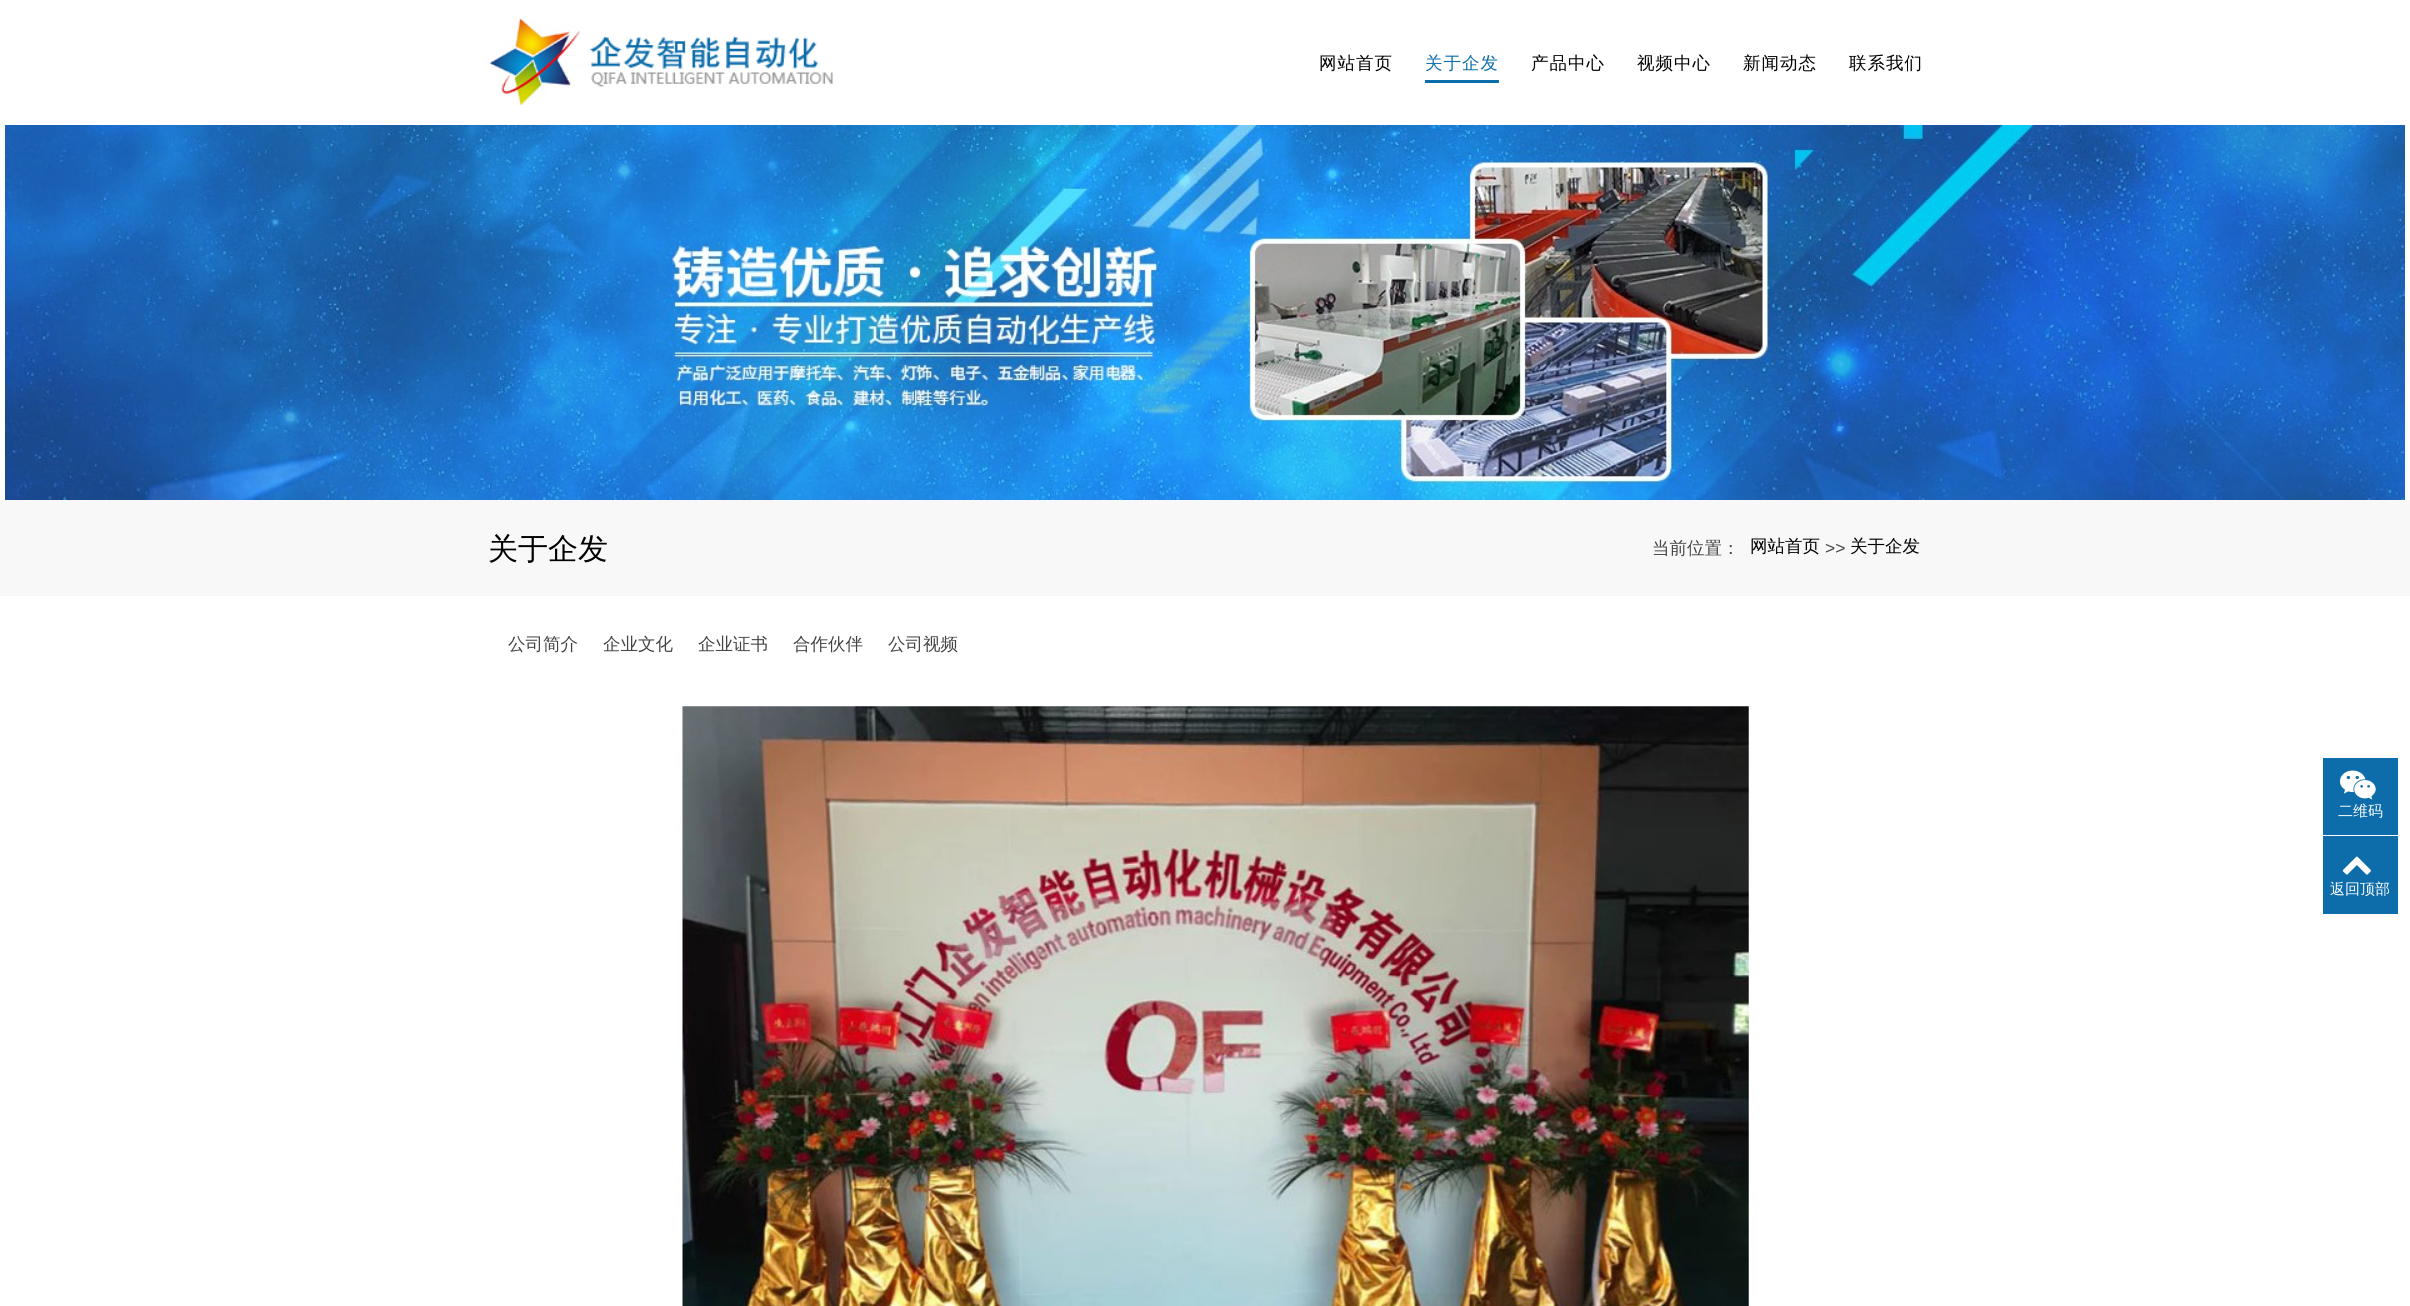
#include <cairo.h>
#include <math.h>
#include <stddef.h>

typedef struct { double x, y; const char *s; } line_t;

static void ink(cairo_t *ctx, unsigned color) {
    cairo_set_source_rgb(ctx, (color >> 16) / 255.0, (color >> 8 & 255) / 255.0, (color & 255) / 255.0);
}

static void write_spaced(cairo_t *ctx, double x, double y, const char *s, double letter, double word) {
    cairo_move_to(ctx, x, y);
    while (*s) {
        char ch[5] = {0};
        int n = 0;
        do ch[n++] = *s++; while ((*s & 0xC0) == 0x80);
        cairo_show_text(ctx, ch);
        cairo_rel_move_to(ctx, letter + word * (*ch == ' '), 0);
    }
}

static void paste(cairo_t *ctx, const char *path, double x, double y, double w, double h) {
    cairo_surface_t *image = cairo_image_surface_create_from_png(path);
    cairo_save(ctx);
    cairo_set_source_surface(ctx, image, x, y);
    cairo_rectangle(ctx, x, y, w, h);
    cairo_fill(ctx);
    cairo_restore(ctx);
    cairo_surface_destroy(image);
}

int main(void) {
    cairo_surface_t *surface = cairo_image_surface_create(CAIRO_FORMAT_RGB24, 2410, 1306);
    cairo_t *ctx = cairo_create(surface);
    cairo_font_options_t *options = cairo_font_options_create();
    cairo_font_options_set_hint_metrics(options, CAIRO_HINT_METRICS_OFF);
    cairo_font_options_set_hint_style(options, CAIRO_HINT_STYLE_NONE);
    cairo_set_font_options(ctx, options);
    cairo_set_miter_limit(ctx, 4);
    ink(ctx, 0xFFFFFF);
    cairo_paint(ctx);
    paste(ctx, "media/1.png", 489, 18, 344, 87);
    cairo_select_font_face(ctx, "WenQuanYi Zen Hei Medium", CAIRO_FONT_SLANT_NORMAL, CAIRO_FONT_WEIGHT_NORMAL);
    cairo_set_font_size(ctx, 17.5);
    ink(ctx, 0x000000);
    write_spaced(ctx, 1319, 69, "网站首页", 1, 0);
    ink(ctx, 0x0D6DAA);
    write_spaced(ctx, 1425, 69, "关于企发", 1, 0);
    cairo_rectangle(ctx, 1425, 80, 74, 3);
    cairo_fill(ctx);
    ink(ctx, 0x000000);
    {
        static const line_t items[] = {
            {1531, 69, "产品中心"},
            {1637, 69, "视频中心"},
            {1743, 69, "新闻动态"},
            {1849, 69, "联系我们"},
        };
        for (size_t i = 0; i < sizeof items / sizeof *items; i++) {
            write_spaced(ctx, items[i].x, items[i].y, items[i].s, 1, 0);
        }
    }
    paste(ctx, "media/2.png", 5, 125, 2400, 375);
    ink(ctx, 0xF8F8F8);
    cairo_rectangle(ctx, 0, 500, 2410, 96);
    cairo_fill(ctx);
    cairo_set_font_size(ctx, 30);
    ink(ctx, 0x000000);
    cairo_move_to(ctx, 488, 559);
    cairo_show_text(ctx, "关于企发");
    cairo_set_font_size(ctx, 17.5);
    ink(ctx, 0x444444);
    cairo_move_to(ctx, 1652, 554);
    cairo_show_text(ctx, "当前位置：");
    ink(ctx, 0x000000);
    cairo_move_to(ctx, 1750, 552);
    cairo_show_text(ctx, "网站首页");
    cairo_select_font_face(ctx, "Liberation Sans", CAIRO_FONT_SLANT_NORMAL, CAIRO_FONT_WEIGHT_NORMAL);
    ink(ctx, 0x444444);
    cairo_move_to(ctx, 1825, 554);
    cairo_show_text(ctx, ">>");
    cairo_select_font_face(ctx, "WenQuanYi Zen Hei Medium", CAIRO_FONT_SLANT_NORMAL, CAIRO_FONT_WEIGHT_NORMAL);
    ink(ctx, 0x000000);
    cairo_move_to(ctx, 1850, 552);
    cairo_show_text(ctx, "关于企发");
    ink(ctx, 0x444444);
    {
        static const line_t items[] = {
            {508, 650, "公司简介"},
            {603, 650, "企业文化"},
            {698, 650, "企业证书"},
            {793, 650, "合作伙伴"},
            {888, 650, "公司视频"},
        };
        for (size_t i = 0; i < sizeof items / sizeof *items; i++) {
            cairo_move_to(ctx, items[i].x, items[i].y);
            cairo_show_text(ctx, items[i].s);
        }
    }
    paste(ctx, "media/3.png", 682, 706, 1067, 600);
    ink(ctx, 0x0D6DAA);
    cairo_rectangle(ctx, 2323, 758, 75, 77);
    cairo_fill(ctx);
    paste(ctx, "media/4.png", 2340, 770, 36, 30);
    cairo_set_font_size(ctx, 15);
    ink(ctx, 0xFFFFFF);
    cairo_move_to(ctx, 2338, 816);
    cairo_show_text(ctx, "二维码");
    ink(ctx, 0x0D6DAA);
    cairo_rectangle(ctx, 2323, 836, 75, 78);
    cairo_fill(ctx);
    paste(ctx, "media/5.png", 2342, 856, 29, 19);
    ink(ctx, 0xFFFFFF);
    cairo_move_to(ctx, 2330, 894);
    cairo_show_text(ctx, "返回顶部");
    cairo_surface_write_to_png(surface, "image.png");
    cairo_font_options_destroy(options);
    cairo_destroy(ctx);
    cairo_surface_destroy(surface);
    return 0;
}
